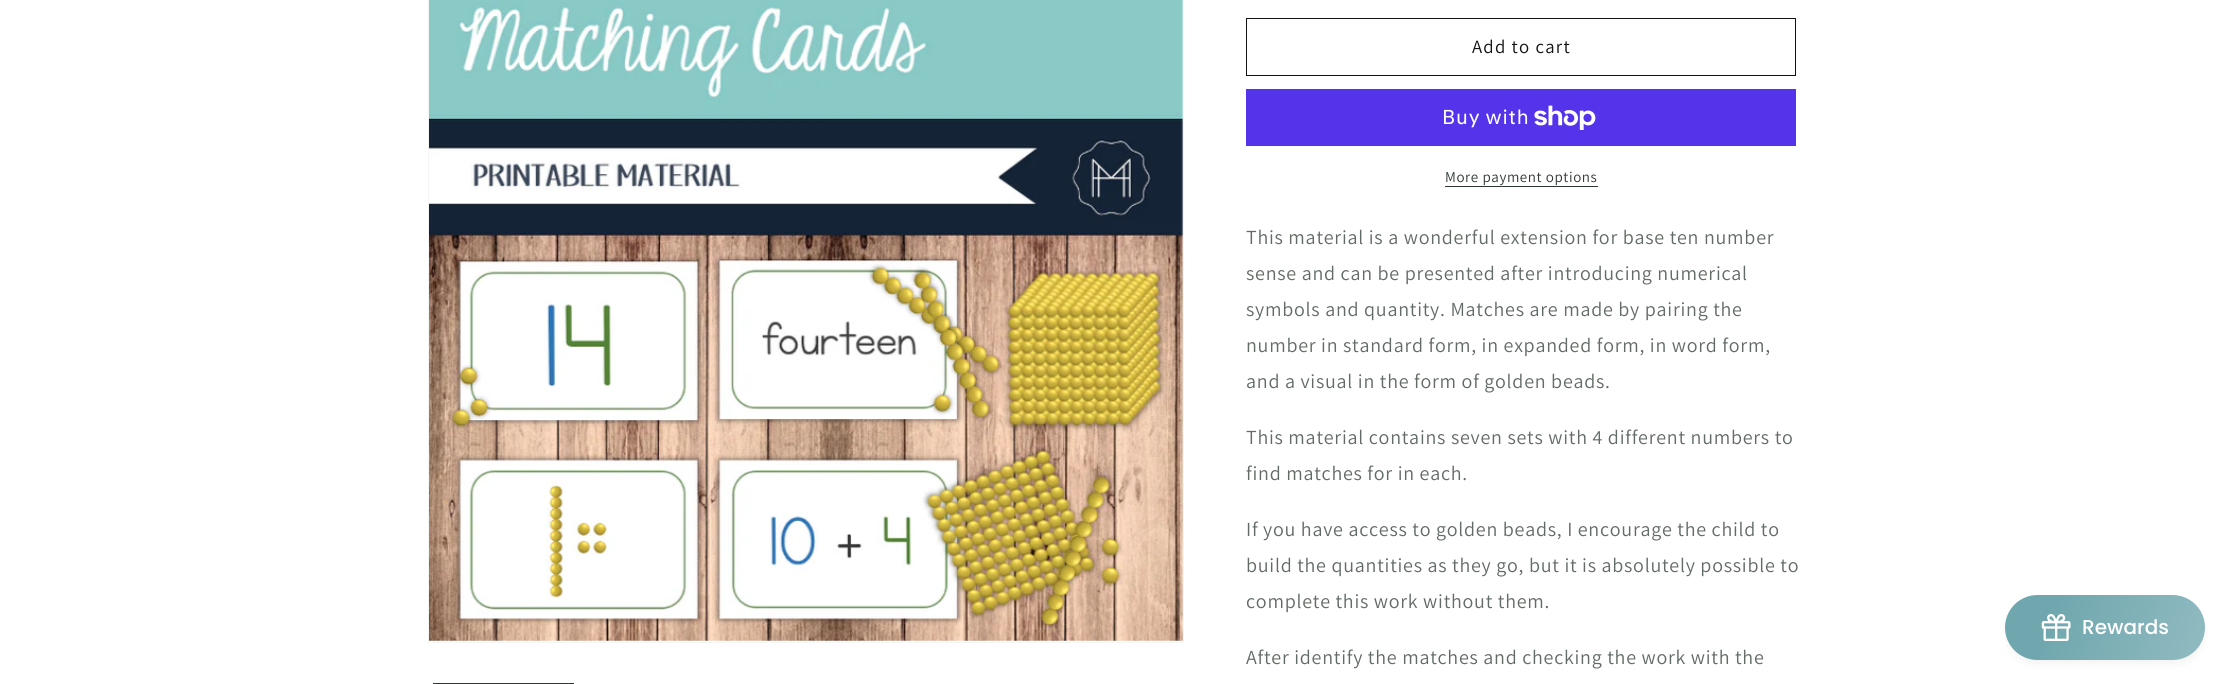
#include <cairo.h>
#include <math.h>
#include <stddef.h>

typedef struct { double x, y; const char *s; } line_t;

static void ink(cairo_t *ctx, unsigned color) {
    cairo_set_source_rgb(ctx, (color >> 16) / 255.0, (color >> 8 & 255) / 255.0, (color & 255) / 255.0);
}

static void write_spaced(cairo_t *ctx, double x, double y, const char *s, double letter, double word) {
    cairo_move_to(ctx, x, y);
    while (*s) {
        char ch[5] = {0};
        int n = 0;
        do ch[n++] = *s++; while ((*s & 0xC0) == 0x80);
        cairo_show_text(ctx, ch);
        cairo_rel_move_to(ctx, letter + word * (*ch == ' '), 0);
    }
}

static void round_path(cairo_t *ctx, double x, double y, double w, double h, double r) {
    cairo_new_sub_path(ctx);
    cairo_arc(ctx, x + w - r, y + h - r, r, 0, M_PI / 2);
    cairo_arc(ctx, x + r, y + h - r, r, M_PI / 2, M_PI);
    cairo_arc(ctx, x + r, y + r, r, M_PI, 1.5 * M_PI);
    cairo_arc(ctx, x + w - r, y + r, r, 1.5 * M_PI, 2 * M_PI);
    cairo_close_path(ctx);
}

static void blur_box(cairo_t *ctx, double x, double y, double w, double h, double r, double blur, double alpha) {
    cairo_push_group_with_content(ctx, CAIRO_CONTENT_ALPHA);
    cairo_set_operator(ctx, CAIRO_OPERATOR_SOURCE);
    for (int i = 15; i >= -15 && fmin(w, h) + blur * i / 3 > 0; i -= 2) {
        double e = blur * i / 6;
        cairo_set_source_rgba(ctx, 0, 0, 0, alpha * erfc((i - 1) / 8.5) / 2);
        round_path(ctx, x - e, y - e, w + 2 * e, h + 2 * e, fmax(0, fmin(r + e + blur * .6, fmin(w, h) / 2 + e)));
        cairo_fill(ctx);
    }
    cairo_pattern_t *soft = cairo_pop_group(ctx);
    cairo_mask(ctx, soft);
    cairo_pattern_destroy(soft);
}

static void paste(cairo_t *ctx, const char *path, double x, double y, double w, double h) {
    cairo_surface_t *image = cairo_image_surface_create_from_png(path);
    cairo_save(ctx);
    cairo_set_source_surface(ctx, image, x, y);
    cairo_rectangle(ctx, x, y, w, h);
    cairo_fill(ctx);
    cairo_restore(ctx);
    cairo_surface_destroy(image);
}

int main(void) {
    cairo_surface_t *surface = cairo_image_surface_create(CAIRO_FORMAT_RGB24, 2230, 684);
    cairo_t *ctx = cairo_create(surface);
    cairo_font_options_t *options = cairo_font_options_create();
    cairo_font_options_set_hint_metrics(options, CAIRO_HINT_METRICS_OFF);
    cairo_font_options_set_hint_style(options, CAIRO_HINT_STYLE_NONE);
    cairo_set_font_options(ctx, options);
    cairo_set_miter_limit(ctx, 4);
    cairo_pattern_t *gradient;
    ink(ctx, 0xFFFFFF);
    cairo_paint(ctx);
    cairo_rectangle(ctx, 428.5, -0.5, 755, 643);
    ink(ctx, 0xF5F5F5);
    cairo_set_line_width(ctx, 1);
    cairo_stroke(ctx);
    paste(ctx, "media/1.png", 429, 0, 754, 641);
    cairo_rectangle(ctx, 433.5, 683.5, 140, 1);
    ink(ctx, 0x2E3932);
    cairo_stroke(ctx);
    cairo_rectangle(ctx, 1246.5, 18.5, 549, 57);
    ink(ctx, 0x121212);
    cairo_stroke(ctx);
    cairo_select_font_face(ctx, "Assistant", CAIRO_FONT_SLANT_NORMAL, CAIRO_FONT_WEIGHT_NORMAL);
    cairo_set_font_size(ctx, 18.75);
    write_spaced(ctx, 1472, 53, "Add to cart", 1.25, 0);
    ink(ctx, 0x5433EB);
    cairo_rectangle(ctx, 1246, 89, 550, 57);
    cairo_fill(ctx);
    cairo_select_font_face(ctx, "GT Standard", CAIRO_FONT_SLANT_NORMAL, CAIRO_FONT_WEIGHT_NORMAL);
    cairo_set_font_size(ctx, 20);
    ink(ctx, 0xFFFFFF);
    write_spaced(ctx, 1442, 124, "Buy with", 0.75, 0);
    paste(ctx, "media/2.png", 1534, 105, 62, 25);
    cairo_select_font_face(ctx, "Assistant", CAIRO_FONT_SLANT_NORMAL, CAIRO_FONT_WEIGHT_NORMAL);
    cairo_set_font_size(ctx, 15);
    ink(ctx, 0x2E3932);
    write_spaced(ctx, 1445, 182, "More payment options", 0.6, 0);
    cairo_rectangle(ctx, 1445, 186, 153, 1);
    cairo_fill(ctx);
    cairo_set_font_size(ctx, 20);
    ink(ctx, 0x626B65);
    {
        static const line_t items[] = {
            {1246, 244, "This material is a wonderful extension for base ten number"},
            {1246, 280, "sense and can be presented after introducing numerical"},
            {1246, 316, "symbols and quantity. Matches are made by pairing the"},
            {1246, 352, "number in standard form, in expanded form, in word form,"},
            {1246, 388, "and a visual in the form of golden beads."},
            {1246, 444, "This material contains seven sets with 4 different numbers to"},
            {1246, 480, "find matches for in each."},
            {1246, 536, "If you have access to golden beads, I encourage the child to"},
            {1246, 572, "build the quantities as they go, but it is absolutely possible to"},
            {1246, 608, "complete this work without them."},
            {1246, 664, "After identify the matches and checking the work with the"},
        };
        for (size_t i = 0; i < sizeof items / sizeof *items; i++) {
            write_spaced(ctx, items[i].x, items[i].y, items[i].s, 0.75, 0);
        }
    }
    ink(ctx, 0x444444);
    blur_box(ctx, 2008, 603, 195, 60, 30, 5, 0.08);
    gradient = cairo_pattern_create_linear(2006, 592, 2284, 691);
    cairo_pattern_add_color_stop_rgba(gradient, 0.17, 0.439, 0.655, 0.682, 1);
    cairo_pattern_add_color_stop_rgba(gradient, 1, 0.635, 0.776, 0.796, 1);
    cairo_set_source(ctx, gradient);
    cairo_pattern_destroy(gradient);
    round_path(ctx, 2005, 595, 200, 65, 32.5);
    cairo_fill(ctx);
    paste(ctx, "media/3.png", 2041, 614, 30, 27);
    cairo_select_font_face(ctx, "Poppins Medium", CAIRO_FONT_SLANT_NORMAL, CAIRO_FONT_WEIGHT_NORMAL);
    ink(ctx, 0xFFFFFF);
    cairo_move_to(ctx, 2082, 634);
    cairo_show_text(ctx, "Rewards");
    cairo_surface_write_to_png(surface, "image.png");
    cairo_font_options_destroy(options);
    cairo_destroy(ctx);
    cairo_surface_destroy(surface);
    return 0;
}
